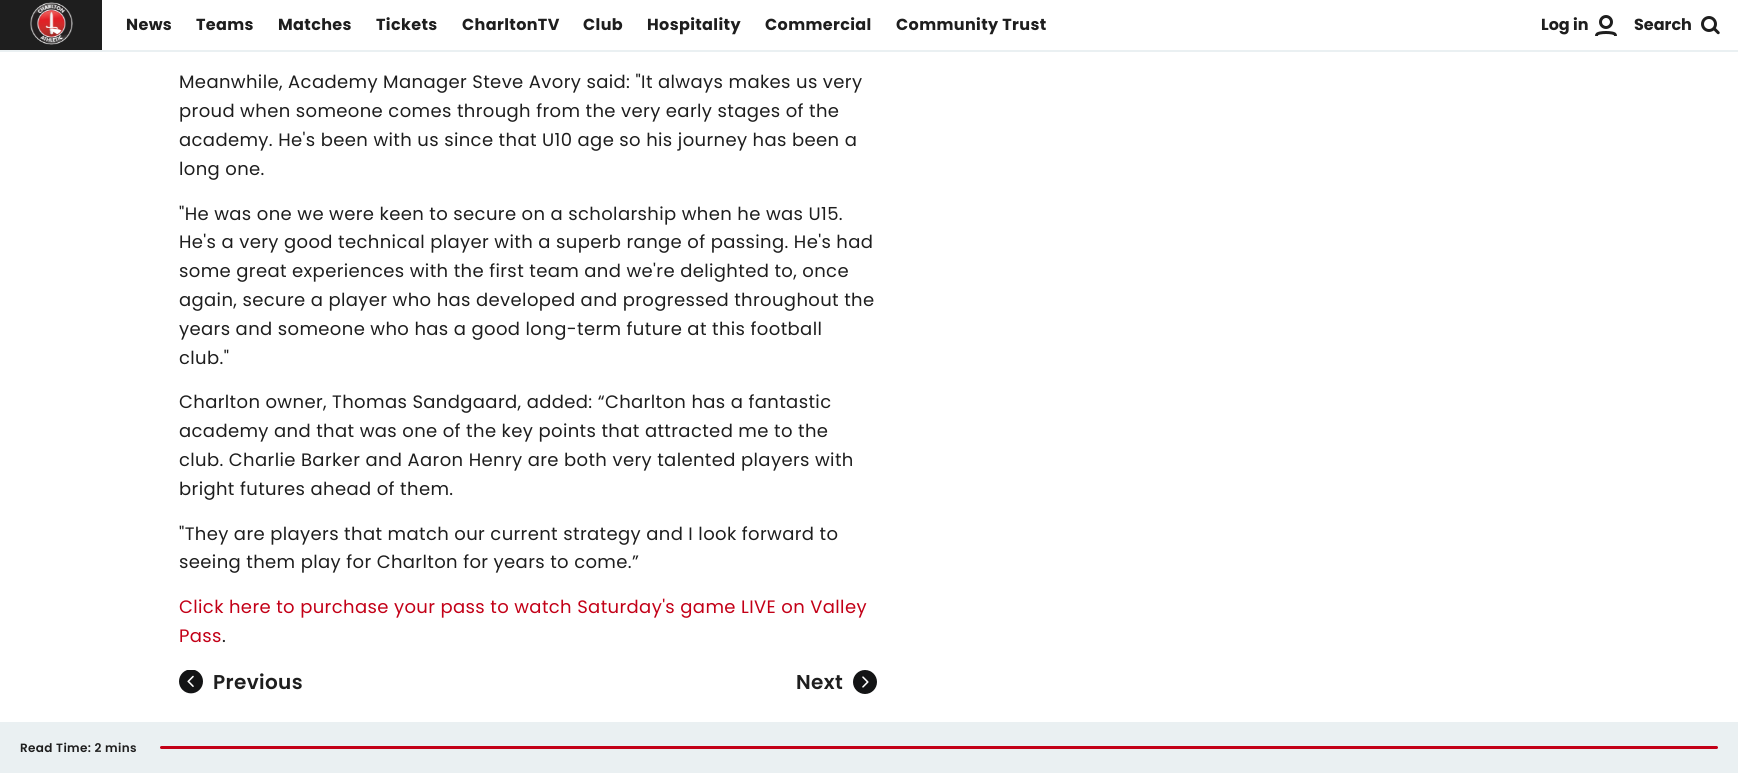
#include <cairo.h>
#include <math.h>
#include <stddef.h>

typedef struct { double x, y; const char *s; } line_t;

static void ink(cairo_t *ctx, unsigned color) {
    cairo_set_source_rgb(ctx, (color >> 16) / 255.0, (color >> 8 & 255) / 255.0, (color & 255) / 255.0);
}

static void write_spaced(cairo_t *ctx, double x, double y, const char *s, double letter, double word) {
    cairo_move_to(ctx, x, y);
    while (*s) {
        char ch[5] = {0};
        int n = 0;
        do ch[n++] = *s++; while ((*s & 0xC0) == 0x80);
        cairo_show_text(ctx, ch);
        cairo_rel_move_to(ctx, letter + word * (*ch == ' '), 0);
    }
}

static void round_path(cairo_t *ctx, double x, double y, double w, double h, double r) {
    cairo_new_sub_path(ctx);
    cairo_arc(ctx, x + w - r, y + h - r, r, 0, M_PI / 2);
    cairo_arc(ctx, x + r, y + h - r, r, M_PI / 2, M_PI);
    cairo_arc(ctx, x + r, y + r, r, M_PI, 1.5 * M_PI);
    cairo_arc(ctx, x + w - r, y + r, r, 1.5 * M_PI, 2 * M_PI);
    cairo_close_path(ctx);
}

static void paste(cairo_t *ctx, const char *path, double x, double y, double w, double h) {
    cairo_surface_t *image = cairo_image_surface_create_from_png(path);
    cairo_save(ctx);
    cairo_set_source_surface(ctx, image, x, y);
    cairo_rectangle(ctx, x, y, w, h);
    cairo_fill(ctx);
    cairo_restore(ctx);
    cairo_surface_destroy(image);
}

int main(void) {
    cairo_surface_t *surface = cairo_image_surface_create(CAIRO_FORMAT_RGB24, 1738, 773);
    cairo_t *ctx = cairo_create(surface);
    cairo_font_options_t *options = cairo_font_options_create();
    cairo_font_options_set_hint_metrics(options, CAIRO_HINT_METRICS_OFF);
    cairo_font_options_set_hint_style(options, CAIRO_HINT_STYLE_NONE);
    cairo_set_font_options(ctx, options);
    cairo_set_miter_limit(ctx, 4);
    ink(ctx, 0xFFFFFF);
    cairo_paint(ctx);
    ink(ctx, 0xEAF0F2);
    cairo_rectangle(ctx, 0, 50, 1738, 2);
    cairo_fill(ctx);
    ink(ctx, 0x1E1E1E);
    cairo_rectangle(ctx, 0, 0, 102, 50);
    cairo_fill(ctx);
    paste(ctx, "media/1.png", 30, 2, 43, 43);
    cairo_select_font_face(ctx, "Poppins", CAIRO_FONT_SLANT_NORMAL, CAIRO_FONT_WEIGHT_BOLD);
    cairo_set_font_size(ctx, 16);
    {
        static const line_t items[] = {
            {126, 30, "News"},
            {196, 30, "Teams"},
            {278, 30, "Matches"},
            {376, 30, "Tickets"},
            {462, 30, "CharltonTV"},
            {583, 30, "Club"},
            {647, 30, "Hospitality"},
            {765, 30, "Commercial"},
            {896, 30, "Community Trust"},
        };
        for (size_t i = 0; i < sizeof items / sizeof *items; i++) {
            write_spaced(ctx, items[i].x, items[i].y, items[i].s, 0.37, 0);
        }
    }
    cairo_move_to(ctx, 1541, 30);
    cairo_show_text(ctx, "Log in");
    paste(ctx, "media/2.png", 1595, 15, 22, 21);
    cairo_move_to(ctx, 1634, 30);
    cairo_show_text(ctx, "Search");
    paste(ctx, "media/3.png", 1701, 16, 19, 19);
    cairo_select_font_face(ctx, "Poppins", CAIRO_FONT_SLANT_NORMAL, CAIRO_FONT_WEIGHT_NORMAL);
    cairo_set_font_size(ctx, 18);
    {
        static const line_t items[] = {
            {179, 88, "Meanwhile, Academy Manager Steve Avory said: \"It always makes us very"},
            {179, 117, "proud when someone comes through from the very early stages of the"},
            {179, 146, "academy. He's been with us since that U10 age so his journey has been a"},
            {179, 175, "long one."},
            {179, 220, "\"He was one we were keen to secure on a scholarship when he was U15."},
            {179, 248, "He's a very good technical player with a superb range of passing. He's had"},
            {179, 277, "some great experiences with the first team and we're delighted to, once"},
            {179, 306, "again, secure a player who has developed and progressed throughout the"},
            {179, 335, "years and someone who has a good long-term future at this football"},
            {179, 364, "club.\""},
            {179, 408, "Charlton owner, Thomas Sandgaard, added: “Charlton has a fantastic"},
            {179, 437, "academy and that was one of the key points that attracted me to the"},
            {179, 466, "club. Charlie Barker and Aaron Henry are both very talented players with"},
            {179, 495, "bright futures ahead of them."},
            {179, 540, "\"They are players that match our current strategy and I look forward to"},
            {179, 568, "seeing them play for Charlton for years to come.”"},
        };
        for (size_t i = 0; i < sizeof items / sizeof *items; i++) {
            write_spaced(ctx, items[i].x, items[i].y, items[i].s, 0.37, 0);
        }
    }
    ink(ctx, 0xC30017);
    write_spaced(ctx, 179, 613, "Click here to purchase your pass to watch Saturday's game LIVE on Valley", 0.37, 0);
    write_spaced(ctx, 179, 642, "Pass", 0.37, 0);
    ink(ctx, 0x1E1E1E);
    write_spaced(ctx, 222, 642, ".", 0.37, 0);
    paste(ctx, "media/4.png", 179, 670, 24, 24);
    cairo_select_font_face(ctx, "Poppins SemiBold", CAIRO_FONT_SLANT_NORMAL, CAIRO_FONT_WEIGHT_NORMAL);
    cairo_set_font_size(ctx, 20);
    write_spaced(ctx, 213, 689, "Previous", 0.37, 0);
    write_spaced(ctx, 796, 689, "Next", 0.37, 0);
    paste(ctx, "media/5.png", 853, 670, 24, 24);
    ink(ctx, 0xEAF0F2);
    cairo_rectangle(ctx, 0, 722, 1738, 51);
    cairo_fill(ctx);
    cairo_set_font_size(ctx, 12);
    ink(ctx, 0x1E1E1E);
    write_spaced(ctx, 20, 752, "Read Time: 2 mins", 0.37, 0);
    ink(ctx, 0xC30017);
    round_path(ctx, 160, 746, 1558, 3, 1.5);
    cairo_fill(ctx);
    cairo_surface_write_to_png(surface, "image.png");
    cairo_font_options_destroy(options);
    cairo_destroy(ctx);
    cairo_surface_destroy(surface);
    return 0;
}
